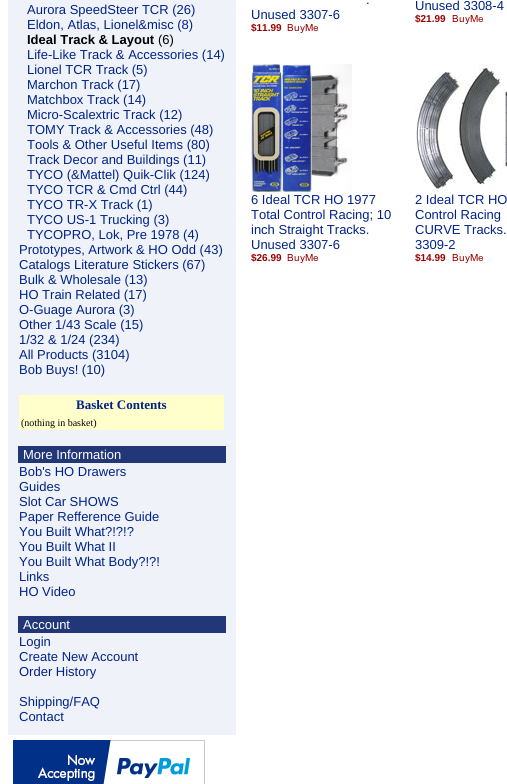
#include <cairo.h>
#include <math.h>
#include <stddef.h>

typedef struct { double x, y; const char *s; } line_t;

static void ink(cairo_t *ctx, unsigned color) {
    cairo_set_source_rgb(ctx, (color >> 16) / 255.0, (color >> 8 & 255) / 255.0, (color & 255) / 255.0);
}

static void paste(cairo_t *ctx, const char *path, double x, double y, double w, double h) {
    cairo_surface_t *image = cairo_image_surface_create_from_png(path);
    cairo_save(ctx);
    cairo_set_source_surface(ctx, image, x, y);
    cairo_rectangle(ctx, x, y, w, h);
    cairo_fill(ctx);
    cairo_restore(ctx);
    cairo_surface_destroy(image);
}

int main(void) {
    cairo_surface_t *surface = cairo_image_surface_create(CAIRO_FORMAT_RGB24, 507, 784);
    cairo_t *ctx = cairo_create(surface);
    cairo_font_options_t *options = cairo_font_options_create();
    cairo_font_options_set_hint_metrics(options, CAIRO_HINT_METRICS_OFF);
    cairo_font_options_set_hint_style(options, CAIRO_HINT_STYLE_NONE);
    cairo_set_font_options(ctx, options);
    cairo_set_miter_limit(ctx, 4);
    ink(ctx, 0xFFFFFF);
    cairo_paint(ctx);
    ink(ctx, 0xEFF3F9);
    cairo_rectangle(ctx, 8, 0, 228, 735);
    cairo_fill(ctx);
    cairo_select_font_face(ctx, "Liberation Sans", CAIRO_FONT_SLANT_NORMAL, CAIRO_FONT_WEIGHT_NORMAL);
    cairo_set_font_size(ctx, 13);
    ink(ctx, 0x002288);
    cairo_move_to(ctx, 27, 14);
    cairo_show_text(ctx, "Aurora SpeedSteer TCR (26)");
    cairo_move_to(ctx, 27, 29);
    cairo_show_text(ctx, "Eldon, Atlas, Lionel&misc (8)");
    cairo_select_font_face(ctx, "Liberation Sans", CAIRO_FONT_SLANT_NORMAL, CAIRO_FONT_WEIGHT_BOLD);
    ink(ctx, 0x000000);
    cairo_move_to(ctx, 27, 44);
    cairo_show_text(ctx, "Ideal Track & Layout");
    cairo_select_font_face(ctx, "Liberation Sans", CAIRO_FONT_SLANT_NORMAL, CAIRO_FONT_WEIGHT_NORMAL);
    cairo_move_to(ctx, 158, 44);
    cairo_show_text(ctx, "(6)");
    ink(ctx, 0x002288);
    {
        static const line_t items[] = {
            {27, 59, "Life-Like Track & Accessories (14)"},
            {27, 74, "Lionel TCR Track (5)"},
            {27, 89, "Marchon Track (17)"},
            {27, 104, "Matchbox Track (14)"},
            {27, 119, "Micro-Scalextric Track (12)"},
            {27, 134, "TOMY Track & Accessories (48)"},
            {27, 149, "Tools & Other Useful Items (80)"},
            {27, 164, "Track Decor and Buildings (11)"},
            {27, 179, "TYCO (&Mattel) Quik-Clik (124)"},
            {27, 194, "TYCO TCR & Cmd Ctrl (44)"},
            {27, 209, "TYCO TR-X Track (1)"},
            {27, 224, "TYCO US-1 Trucking (3)"},
            {27, 239, "TYCOPRO, Lok, Pre 1978 (4)"},
            {19, 254, "Prototypes, Artwork & HO Odd (43)"},
            {19, 269, "Catalogs Literature Stickers (67)"},
            {19, 284, "Bulk & Wholesale (13)"},
            {19, 299, "HO Train Related (17)"},
            {19, 314, "O-Guage Aurora (3)"},
            {19, 329, "Other 1/43 Scale (15)"},
            {19, 344, "1/32 & 1/24 (234)"},
            {19, 359, "All Products (3104)"},
            {19, 374, "Bob Buys! (10)"},
        };
        for (size_t i = 0; i < sizeof items / sizeof *items; i++) {
            cairo_move_to(ctx, items[i].x, items[i].y);
            cairo_show_text(ctx, items[i].s);
        }
    }
    ink(ctx, 0xFFFFCC);
    cairo_rectangle(ctx, 19, 395, 205, 35);
    cairo_fill(ctx);
    cairo_select_font_face(ctx, "Liberation Serif", CAIRO_FONT_SLANT_NORMAL, CAIRO_FONT_WEIGHT_BOLD);
    ink(ctx, 0x002288);
    cairo_move_to(ctx, 76, 409);
    cairo_show_text(ctx, "Basket Contents");
    cairo_select_font_face(ctx, "Liberation Serif", CAIRO_FONT_SLANT_NORMAL, CAIRO_FONT_WEIGHT_NORMAL);
    cairo_set_font_size(ctx, 10);
    ink(ctx, 0x000000);
    cairo_move_to(ctx, 21, 426);
    cairo_show_text(ctx, "(nothing in basket)");
    ink(ctx, 0x213778);
    cairo_rectangle(ctx, 18, 446, 208, 17);
    cairo_fill(ctx);
    cairo_select_font_face(ctx, "Liberation Sans", CAIRO_FONT_SLANT_NORMAL, CAIRO_FONT_WEIGHT_NORMAL);
    cairo_set_font_size(ctx, 13);
    ink(ctx, 0xFFFFFF);
    cairo_move_to(ctx, 23, 459);
    cairo_show_text(ctx, "More Information");
    ink(ctx, 0x002288);
    {
        static const line_t items[] = {
            {19, 476, "Bob's HO Drawers"},
            {19, 491, "Guides"},
            {19, 506, "Slot Car SHOWS"},
            {19, 521, "Paper Refference Guide"},
            {19, 536, "You Built What?!?!?"},
            {19, 551, "You Built What II"},
            {19, 566, "You Built What Body?!?!"},
            {19, 581, "Links"},
            {19, 596, "HO Video"},
        };
        for (size_t i = 0; i < sizeof items / sizeof *items; i++) {
            cairo_move_to(ctx, items[i].x, items[i].y);
            cairo_show_text(ctx, items[i].s);
        }
    }
    ink(ctx, 0x213778);
    cairo_rectangle(ctx, 18, 616, 208, 17);
    cairo_fill(ctx);
    ink(ctx, 0xFFFFFF);
    cairo_move_to(ctx, 23, 629);
    cairo_show_text(ctx, "Account");
    ink(ctx, 0x002288);
    {
        static const line_t items[] = {
            {19, 646, "Login"},
            {19, 661, "Create New Account"},
            {19, 676, "Order History"},
            {19, 706, "Shipping/FAQ"},
            {19, 721, "Contact"},
            {366, 4, "."},
            {251, 19, "Unused 3307-6"},
        };
        for (size_t i = 0; i < sizeof items / sizeof *items; i++) {
            cairo_move_to(ctx, items[i].x, items[i].y);
            cairo_show_text(ctx, items[i].s);
        }
    }
    cairo_select_font_face(ctx, "Liberation Sans", CAIRO_FONT_SLANT_NORMAL, CAIRO_FONT_WEIGHT_BOLD);
    cairo_set_font_size(ctx, 10);
    ink(ctx, 0x990000);
    cairo_move_to(ctx, 251, 31);
    cairo_show_text(ctx, "$11.99");
    paste(ctx, "media/1.png", 287, 24, 32, 9);
    cairo_select_font_face(ctx, "Liberation Sans", CAIRO_FONT_SLANT_NORMAL, CAIRO_FONT_WEIGHT_NORMAL);
    cairo_set_font_size(ctx, 13);
    ink(ctx, 0x002288);
    cairo_move_to(ctx, 415, 10);
    cairo_show_text(ctx, "Unused 3308-4");
    cairo_select_font_face(ctx, "Liberation Sans", CAIRO_FONT_SLANT_NORMAL, CAIRO_FONT_WEIGHT_BOLD);
    cairo_set_font_size(ctx, 10);
    ink(ctx, 0x990000);
    cairo_move_to(ctx, 415, 22);
    cairo_show_text(ctx, "$21.99");
    paste(ctx, "media/1.png", 452, 15, 32, 9);
    paste(ctx, "media/2.png", 251, 64, 101, 128);
    cairo_select_font_face(ctx, "Liberation Sans", CAIRO_FONT_SLANT_NORMAL, CAIRO_FONT_WEIGHT_NORMAL);
    cairo_set_font_size(ctx, 13);
    ink(ctx, 0x002288);
    {
        static const line_t items[] = {
            {251, 204, "6 Ideal TCR HO 1977"},
            {251, 219, "Total Control Racing; 10"},
            {251, 234, "inch Straight Tracks."},
            {251, 249, "Unused 3307-6"},
        };
        for (size_t i = 0; i < sizeof items / sizeof *items; i++) {
            cairo_move_to(ctx, items[i].x, items[i].y);
            cairo_show_text(ctx, items[i].s);
        }
    }
    cairo_select_font_face(ctx, "Liberation Sans", CAIRO_FONT_SLANT_NORMAL, CAIRO_FONT_WEIGHT_BOLD);
    cairo_set_font_size(ctx, 10);
    ink(ctx, 0x990000);
    cairo_move_to(ctx, 251, 261);
    cairo_show_text(ctx, "$26.99");
    paste(ctx, "media/1.png", 287, 254, 32, 9);
    paste(ctx, "media/3.png", 415, 64, 92, 128);
    cairo_select_font_face(ctx, "Liberation Sans", CAIRO_FONT_SLANT_NORMAL, CAIRO_FONT_WEIGHT_NORMAL);
    cairo_set_font_size(ctx, 13);
    ink(ctx, 0x002288);
    {
        static const line_t items[] = {
            {415, 204, "2 Ideal TCR HO"},
            {415, 219, "Control Racing"},
            {415, 234, "CURVE Tracks."},
            {415, 249, "3309-2"},
        };
        for (size_t i = 0; i < sizeof items / sizeof *items; i++) {
            cairo_move_to(ctx, items[i].x, items[i].y);
            cairo_show_text(ctx, items[i].s);
        }
    }
    cairo_select_font_face(ctx, "Liberation Sans", CAIRO_FONT_SLANT_NORMAL, CAIRO_FONT_WEIGHT_BOLD);
    cairo_set_font_size(ctx, 10);
    ink(ctx, 0x990000);
    cairo_move_to(ctx, 415, 261);
    cairo_show_text(ctx, "$14.99");
    paste(ctx, "media/1.png", 452, 254, 32, 9);
    paste(ctx, "media/4.png", 13, 740, 192, 44);
    cairo_surface_write_to_png(surface, "image.png");
    cairo_font_options_destroy(options);
    cairo_destroy(ctx);
    cairo_surface_destroy(surface);
    return 0;
}
